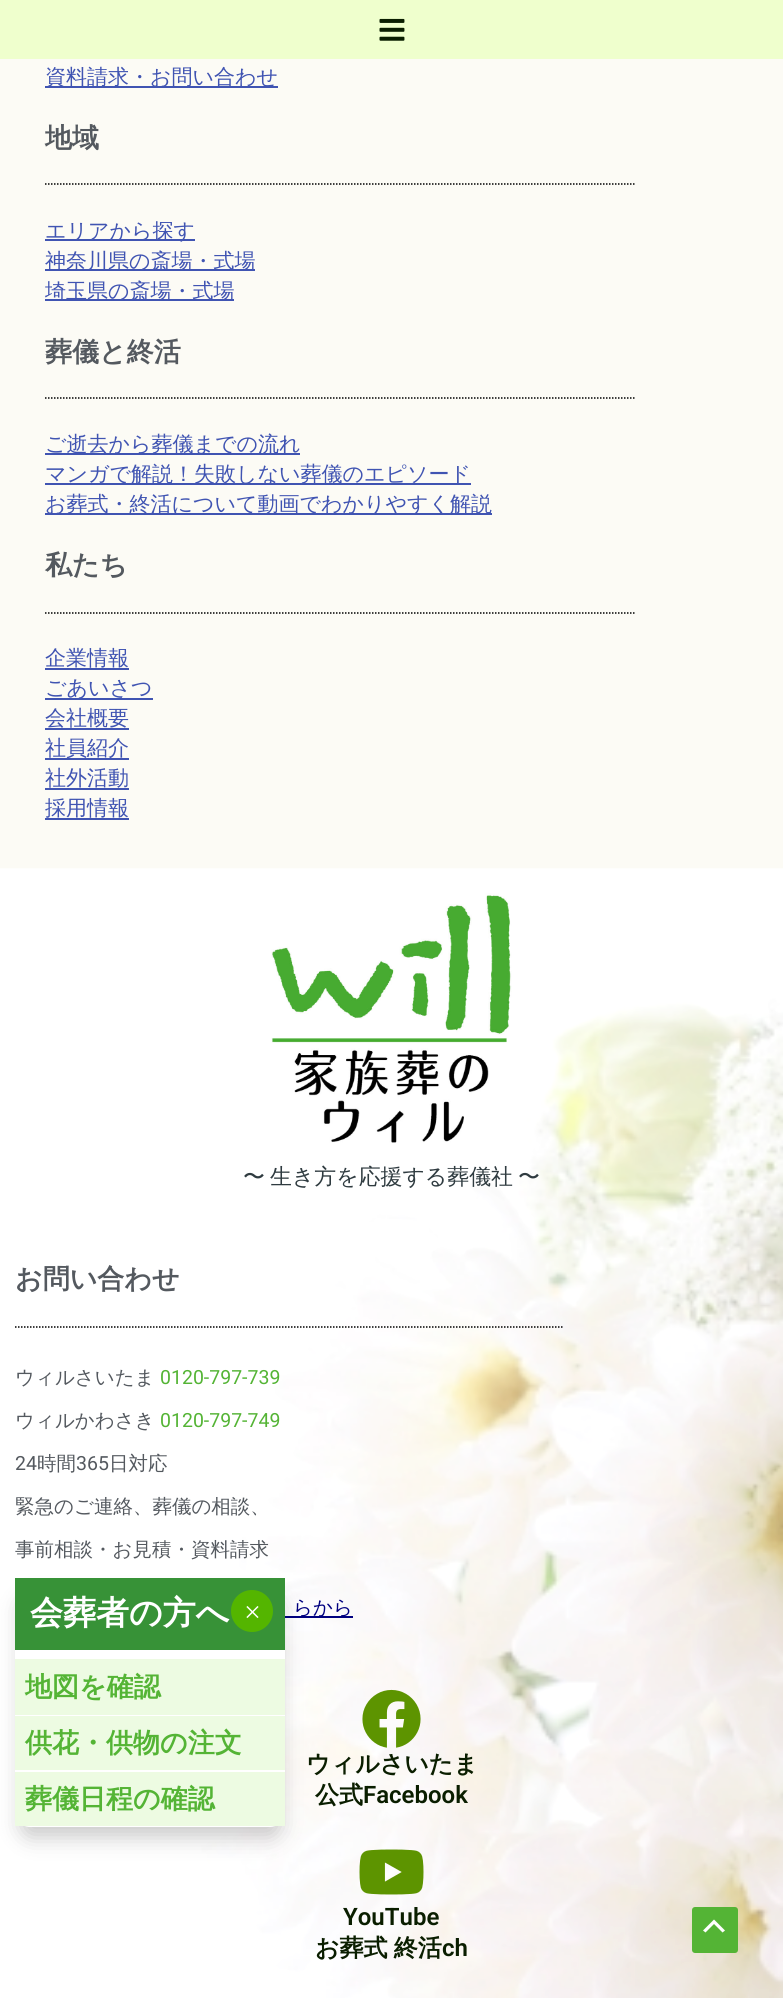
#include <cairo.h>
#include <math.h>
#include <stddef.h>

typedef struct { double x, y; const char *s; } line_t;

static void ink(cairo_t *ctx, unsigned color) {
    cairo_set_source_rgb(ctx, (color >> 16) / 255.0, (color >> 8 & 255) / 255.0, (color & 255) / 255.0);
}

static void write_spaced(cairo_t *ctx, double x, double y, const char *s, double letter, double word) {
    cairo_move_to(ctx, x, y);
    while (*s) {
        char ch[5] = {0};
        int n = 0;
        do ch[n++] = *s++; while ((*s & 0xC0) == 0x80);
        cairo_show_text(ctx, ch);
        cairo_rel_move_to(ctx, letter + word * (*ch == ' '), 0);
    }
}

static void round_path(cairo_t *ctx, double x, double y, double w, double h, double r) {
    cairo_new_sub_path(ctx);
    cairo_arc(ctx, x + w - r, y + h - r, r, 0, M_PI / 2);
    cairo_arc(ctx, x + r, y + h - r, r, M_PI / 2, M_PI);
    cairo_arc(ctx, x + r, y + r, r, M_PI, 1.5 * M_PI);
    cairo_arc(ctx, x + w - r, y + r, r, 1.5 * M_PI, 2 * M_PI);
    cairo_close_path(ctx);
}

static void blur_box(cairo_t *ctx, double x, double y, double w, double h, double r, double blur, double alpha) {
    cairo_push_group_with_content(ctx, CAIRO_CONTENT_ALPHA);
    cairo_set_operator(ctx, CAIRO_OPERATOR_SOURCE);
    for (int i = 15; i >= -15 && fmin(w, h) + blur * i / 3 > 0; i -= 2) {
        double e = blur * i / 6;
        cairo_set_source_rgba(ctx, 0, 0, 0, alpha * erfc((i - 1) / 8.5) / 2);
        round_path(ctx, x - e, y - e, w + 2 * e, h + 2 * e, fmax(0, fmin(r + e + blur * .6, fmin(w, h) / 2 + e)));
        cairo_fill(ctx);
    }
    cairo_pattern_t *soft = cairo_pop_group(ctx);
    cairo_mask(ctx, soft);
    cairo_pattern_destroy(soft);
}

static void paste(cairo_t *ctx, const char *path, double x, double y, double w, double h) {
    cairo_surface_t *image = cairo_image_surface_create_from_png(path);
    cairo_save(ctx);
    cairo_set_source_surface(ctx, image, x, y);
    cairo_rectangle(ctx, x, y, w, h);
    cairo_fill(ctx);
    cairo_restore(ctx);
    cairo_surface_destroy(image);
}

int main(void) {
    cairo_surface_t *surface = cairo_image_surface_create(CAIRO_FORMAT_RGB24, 783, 1998);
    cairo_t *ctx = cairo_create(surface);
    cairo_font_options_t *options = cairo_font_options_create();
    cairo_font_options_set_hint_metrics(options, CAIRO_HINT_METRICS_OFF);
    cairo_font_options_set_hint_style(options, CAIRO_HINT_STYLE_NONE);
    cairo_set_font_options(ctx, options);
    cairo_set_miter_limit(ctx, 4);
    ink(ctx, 0xFFFFFF);
    cairo_paint(ctx);
    ink(ctx, 0xEFFFCD);
    cairo_rectangle(ctx, 0, 0, 783, 59);
    cairo_fill(ctx);
    paste(ctx, "media/1.png", 379, 18, 26, 23);
    ink(ctx, 0xFCFBF5);
    cairo_rectangle(ctx, 0, 59, 783, 810);
    cairo_fill(ctx);
    ink(ctx, 0x4054B2);
    cairo_rectangle(ctx, 45, 86, 233, 2);
    cairo_fill(ctx);
    cairo_select_font_face(ctx, "WenQuanYi Zen Hei Medium", CAIRO_FONT_SLANT_NORMAL, CAIRO_FONT_WEIGHT_NORMAL);
    cairo_set_font_size(ctx, 21);
    cairo_move_to(ctx, 45, 84);
    cairo_show_text(ctx, "資料請求・お問い合わせ");
    cairo_select_font_face(ctx, "WenQuanYi Zen Hei", CAIRO_FONT_SLANT_NORMAL, CAIRO_FONT_WEIGHT_BOLD);
    cairo_set_font_size(ctx, 27);
    ink(ctx, 0x54595F);
    cairo_move_to(ctx, 45, 147);
    cairo_show_text(ctx, "地域");
    cairo_new_path(ctx);
    cairo_move_to(ctx, 45, 184);
    cairo_line_to(ctx, 634.5, 184);
    ink(ctx, 0x000000);
    cairo_set_line_width(ctx, 1.5);
    cairo_set_dash(ctx, (double[]){1.5, 1.5}, 2, 0);
    cairo_stroke(ctx);
    ink(ctx, 0x4054B2);
    cairo_rectangle(ctx, 45, 239, 150, 2);
    cairo_fill(ctx);
    cairo_select_font_face(ctx, "WenQuanYi Zen Hei Medium", CAIRO_FONT_SLANT_NORMAL, CAIRO_FONT_WEIGHT_NORMAL);
    cairo_set_font_size(ctx, 21);
    cairo_move_to(ctx, 45, 238);
    cairo_show_text(ctx, "エリアから探す");
    cairo_rectangle(ctx, 45, 269, 210, 2);
    cairo_fill(ctx);
    cairo_move_to(ctx, 45, 268);
    cairo_show_text(ctx, "神奈川県の斎場・式場");
    cairo_rectangle(ctx, 45, 299, 189, 2);
    cairo_fill(ctx);
    cairo_move_to(ctx, 45, 298);
    cairo_show_text(ctx, "埼玉県の斎場・式場");
    cairo_select_font_face(ctx, "WenQuanYi Zen Hei", CAIRO_FONT_SLANT_NORMAL, CAIRO_FONT_WEIGHT_BOLD);
    cairo_set_font_size(ctx, 27);
    ink(ctx, 0x54595F);
    cairo_move_to(ctx, 45, 361);
    cairo_show_text(ctx, "葬儀と終活");
    cairo_new_path(ctx);
    cairo_move_to(ctx, 45, 398);
    cairo_line_to(ctx, 634.5, 398);
    ink(ctx, 0x000000);
    cairo_stroke(ctx);
    ink(ctx, 0x4054B2);
    cairo_rectangle(ctx, 45, 453, 255, 2);
    cairo_fill(ctx);
    cairo_select_font_face(ctx, "WenQuanYi Zen Hei Medium", CAIRO_FONT_SLANT_NORMAL, CAIRO_FONT_WEIGHT_NORMAL);
    cairo_set_font_size(ctx, 21);
    cairo_move_to(ctx, 45, 451);
    cairo_show_text(ctx, "ご逝去から葬儀までの流れ");
    cairo_rectangle(ctx, 45, 483, 426, 2);
    cairo_fill(ctx);
    cairo_move_to(ctx, 45, 481);
    cairo_show_text(ctx, "マンガで解説！失敗しない葬儀のエピソード");
    cairo_rectangle(ctx, 45, 513, 447, 2);
    cairo_fill(ctx);
    cairo_move_to(ctx, 45, 511);
    cairo_show_text(ctx, "お葬式・終活について動画でわかりやすく解説");
    cairo_select_font_face(ctx, "WenQuanYi Zen Hei", CAIRO_FONT_SLANT_NORMAL, CAIRO_FONT_WEIGHT_BOLD);
    cairo_set_font_size(ctx, 27);
    ink(ctx, 0x54595F);
    cairo_move_to(ctx, 45, 574);
    cairo_show_text(ctx, "私たち");
    cairo_new_path(ctx);
    cairo_move_to(ctx, 45, 613);
    cairo_line_to(ctx, 634.5, 613);
    ink(ctx, 0x000000);
    cairo_stroke(ctx);
    cairo_select_font_face(ctx, "WenQuanYi Zen Hei Medium", CAIRO_FONT_SLANT_NORMAL, CAIRO_FONT_WEIGHT_NORMAL);
    cairo_set_font_size(ctx, 21);
    ink(ctx, 0x4054B2);
    cairo_move_to(ctx, 45, 665);
    cairo_show_text(ctx, "企業情報");
    cairo_rectangle(ctx, 45, 668, 84, 2);
    cairo_fill(ctx);
    cairo_rectangle(ctx, 45, 698, 108, 2);
    cairo_fill(ctx);
    cairo_move_to(ctx, 45, 695);
    cairo_show_text(ctx, "ごあいさつ");
    cairo_move_to(ctx, 45, 725);
    cairo_show_text(ctx, "会社概要");
    cairo_rectangle(ctx, 45, 728, 84, 2);
    cairo_fill(ctx);
    cairo_rectangle(ctx, 45, 758, 84, 2);
    cairo_fill(ctx);
    cairo_move_to(ctx, 45, 755);
    cairo_show_text(ctx, "社員紹介");
    cairo_move_to(ctx, 45, 785);
    cairo_show_text(ctx, "社外活動");
    cairo_rectangle(ctx, 45, 788, 84, 2);
    cairo_fill(ctx);
    cairo_move_to(ctx, 45, 815);
    cairo_show_text(ctx, "採用情報");
    cairo_rectangle(ctx, 45, 818, 84, 2);
    cairo_fill(ctx);
    paste(ctx, "media/2.png", 0, 868, 783, 1130);
    paste(ctx, "media/3.png", 271, 893, 241, 250);
    cairo_set_font_size(ctx, 21.9);
    ink(ctx, 0x2F3B40);
    {
        static const line_t items[] = {
            {243, 1184, "〜"},
            {270, 1184, "生き方を応援する葬儀社"},
            {518, 1184, "〜"},
        };
        for (size_t i = 0; i < sizeof items / sizeof *items; i++) {
            cairo_move_to(ctx, items[i].x, items[i].y);
            cairo_show_text(ctx, items[i].s);
        }
    }
    cairo_select_font_face(ctx, "WenQuanYi Zen Hei", CAIRO_FONT_SLANT_NORMAL, CAIRO_FONT_WEIGHT_BOLD);
    cairo_set_font_size(ctx, 27);
    ink(ctx, 0x54595F);
    cairo_move_to(ctx, 15, 1288);
    cairo_show_text(ctx, "お問い合わせ");
    cairo_new_path(ctx);
    cairo_move_to(ctx, 15, 1327);
    cairo_line_to(ctx, 564, 1327);
    ink(ctx, 0x000000);
    cairo_stroke(ctx);
    cairo_select_font_face(ctx, "WenQuanYi Zen Hei Medium", CAIRO_FONT_SLANT_NORMAL, CAIRO_FONT_WEIGHT_NORMAL);
    cairo_set_font_size(ctx, 19.5);
    ink(ctx, 0x54595F);
    cairo_move_to(ctx, 15, 1384);
    cairo_show_text(ctx, "ウィルさいたま");
    cairo_select_font_face(ctx, "Roboto", CAIRO_FONT_SLANT_NORMAL, CAIRO_FONT_WEIGHT_NORMAL);
    ink(ctx, 0x54B435);
    cairo_move_to(ctx, 160, 1384);
    cairo_show_text(ctx, "0120-797-739");
    cairo_select_font_face(ctx, "WenQuanYi Zen Hei Medium", CAIRO_FONT_SLANT_NORMAL, CAIRO_FONT_WEIGHT_NORMAL);
    ink(ctx, 0x54595F);
    cairo_move_to(ctx, 15, 1427);
    cairo_show_text(ctx, "ウィルかわさき");
    cairo_select_font_face(ctx, "Roboto", CAIRO_FONT_SLANT_NORMAL, CAIRO_FONT_WEIGHT_NORMAL);
    ink(ctx, 0x54B435);
    cairo_move_to(ctx, 160, 1427);
    cairo_show_text(ctx, "0120-797-749");
    ink(ctx, 0x54595F);
    cairo_move_to(ctx, 15, 1470);
    cairo_show_text(ctx, "24");
    cairo_select_font_face(ctx, "WenQuanYi Zen Hei Medium", CAIRO_FONT_SLANT_NORMAL, CAIRO_FONT_WEIGHT_NORMAL);
    cairo_move_to(ctx, 37, 1470);
    cairo_show_text(ctx, "時間");
    cairo_select_font_face(ctx, "Roboto", CAIRO_FONT_SLANT_NORMAL, CAIRO_FONT_WEIGHT_NORMAL);
    cairo_move_to(ctx, 76, 1470);
    cairo_show_text(ctx, "365");
    cairo_select_font_face(ctx, "WenQuanYi Zen Hei Medium", CAIRO_FONT_SLANT_NORMAL, CAIRO_FONT_WEIGHT_NORMAL);
    {
        static const line_t items[] = {
            {109, 1470, "日対応"},
            {15, 1513, "緊急のご連絡、葬儀の相談、"},
            {15, 1556, "事前相談・お見積・資料請求"},
        };
        for (size_t i = 0; i < sizeof items / sizeof *items; i++) {
            cairo_move_to(ctx, items[i].x, items[i].y);
            cairo_show_text(ctx, items[i].s);
        }
    }
    ink(ctx, 0x000080);
    cairo_rectangle(ctx, 285, 1616, 68, 2);
    cairo_fill(ctx);
    cairo_move_to(ctx, 293, 1614);
    cairo_show_text(ctx, "らから");
    paste(ctx, "media/4.png", 362, 1689, 59, 59);
    cairo_select_font_face(ctx, "WenQuanYi Zen Hei", CAIRO_FONT_SLANT_NORMAL, CAIRO_FONT_WEIGHT_BOLD);
    cairo_set_font_size(ctx, 24);
    ink(ctx, 0x0A1E00);
    cairo_move_to(ctx, 306, 1772);
    cairo_show_text(ctx, "ウィルさいたま");
    cairo_move_to(ctx, 315, 1803);
    cairo_show_text(ctx, "公式");
    cairo_select_font_face(ctx, "Roboto SemiBold", CAIRO_FONT_SLANT_NORMAL, CAIRO_FONT_WEIGHT_NORMAL);
    cairo_move_to(ctx, 363, 1803);
    cairo_show_text(ctx, "Facebook");
    paste(ctx, "media/5.png", 359, 1849, 65, 46);
    cairo_move_to(ctx, 343, 1925);
    cairo_show_text(ctx, "YouTube");
    cairo_select_font_face(ctx, "WenQuanYi Zen Hei", CAIRO_FONT_SLANT_NORMAL, CAIRO_FONT_WEIGHT_BOLD);
    write_spaced(ctx, 315, 1956, "お葬式 終活", 0, -1);
    cairo_select_font_face(ctx, "Roboto SemiBold", CAIRO_FONT_SLANT_NORMAL, CAIRO_FONT_WEIGHT_NORMAL);
    cairo_move_to(ctx, 442, 1956);
    cairo_show_text(ctx, "ch");
    ink(ctx, 0x020202);
    blur_box(ctx, 20, 1598, 261, 240, 11, 10.5, 0.2);
    ink(ctx, 0xFFFFFF);
    round_path(ctx, 15, 1578, 270, 249, 15);
    cairo_fill(ctx);
    ink(ctx, 0x379237);
    cairo_rectangle(ctx, 15, 1578, 270, 72);
    cairo_fill(ctx);
    cairo_select_font_face(ctx, "WenQuanYi Zen Hei", CAIRO_FONT_SLANT_NORMAL, CAIRO_FONT_WEIGHT_BOLD);
    cairo_set_font_size(ctx, 33);
    ink(ctx, 0xFFFFFF);
    cairo_move_to(ctx, 30, 1624);
    cairo_show_text(ctx, "会葬者の方へ");
    ink(ctx, 0xEDFBE2);
    cairo_rectangle(ctx, 15, 1659, 270, 56);
    cairo_fill(ctx);
    cairo_set_font_size(ctx, 27);
    ink(ctx, 0x54B435);
    cairo_move_to(ctx, 25, 1696);
    cairo_show_text(ctx, "地図を確認");
    ink(ctx, 0xEDFBE2);
    cairo_rectangle(ctx, 15, 1716, 270, 54);
    cairo_fill(ctx);
    ink(ctx, 0x54B435);
    cairo_move_to(ctx, 25, 1752);
    cairo_show_text(ctx, "供花・供物の注文");
    ink(ctx, 0xEDFBE2);
    cairo_rectangle(ctx, 15, 1772, 270, 54);
    cairo_fill(ctx);
    ink(ctx, 0x54B435);
    cairo_move_to(ctx, 25, 1808);
    cairo_show_text(ctx, "葬儀日程の確認");
    ink(ctx, 0x54B500);
    cairo_new_path(ctx);
    cairo_arc(ctx, 252, 1611, 21, 0, 2 * M_PI);
    cairo_fill(ctx);
    cairo_select_font_face(ctx, "Liberation Serif", CAIRO_FONT_SLANT_NORMAL, CAIRO_FONT_WEIGHT_NORMAL);
    cairo_set_font_size(ctx, 30);
    ink(ctx, 0xFFFFFF);
    cairo_move_to(ctx, 244, 1622);
    cairo_show_text(ctx, "×");
    ink(ctx, 0x54B435);
    round_path(ctx, 692, 1907, 46, 46, 3);
    cairo_fill(ctx);
    ink(ctx, 0xFFFFFF);
    cairo_new_path(ctx);
    cairo_move_to(ctx, 725, 1930.5);
    cairo_line_to(ctx, 714, 1919.5);
    cairo_line_to(ctx, 703, 1930.5);
    cairo_line_to(ctx, 705.5, 1932.5);
    cairo_line_to(ctx, 714, 1924);
    cairo_line_to(ctx, 722.5, 1932.5);
    cairo_close_path(ctx);
    cairo_fill(ctx);
    cairo_surface_write_to_png(surface, "image.png");
    cairo_font_options_destroy(options);
    cairo_destroy(ctx);
    cairo_surface_destroy(surface);
    return 0;
}
